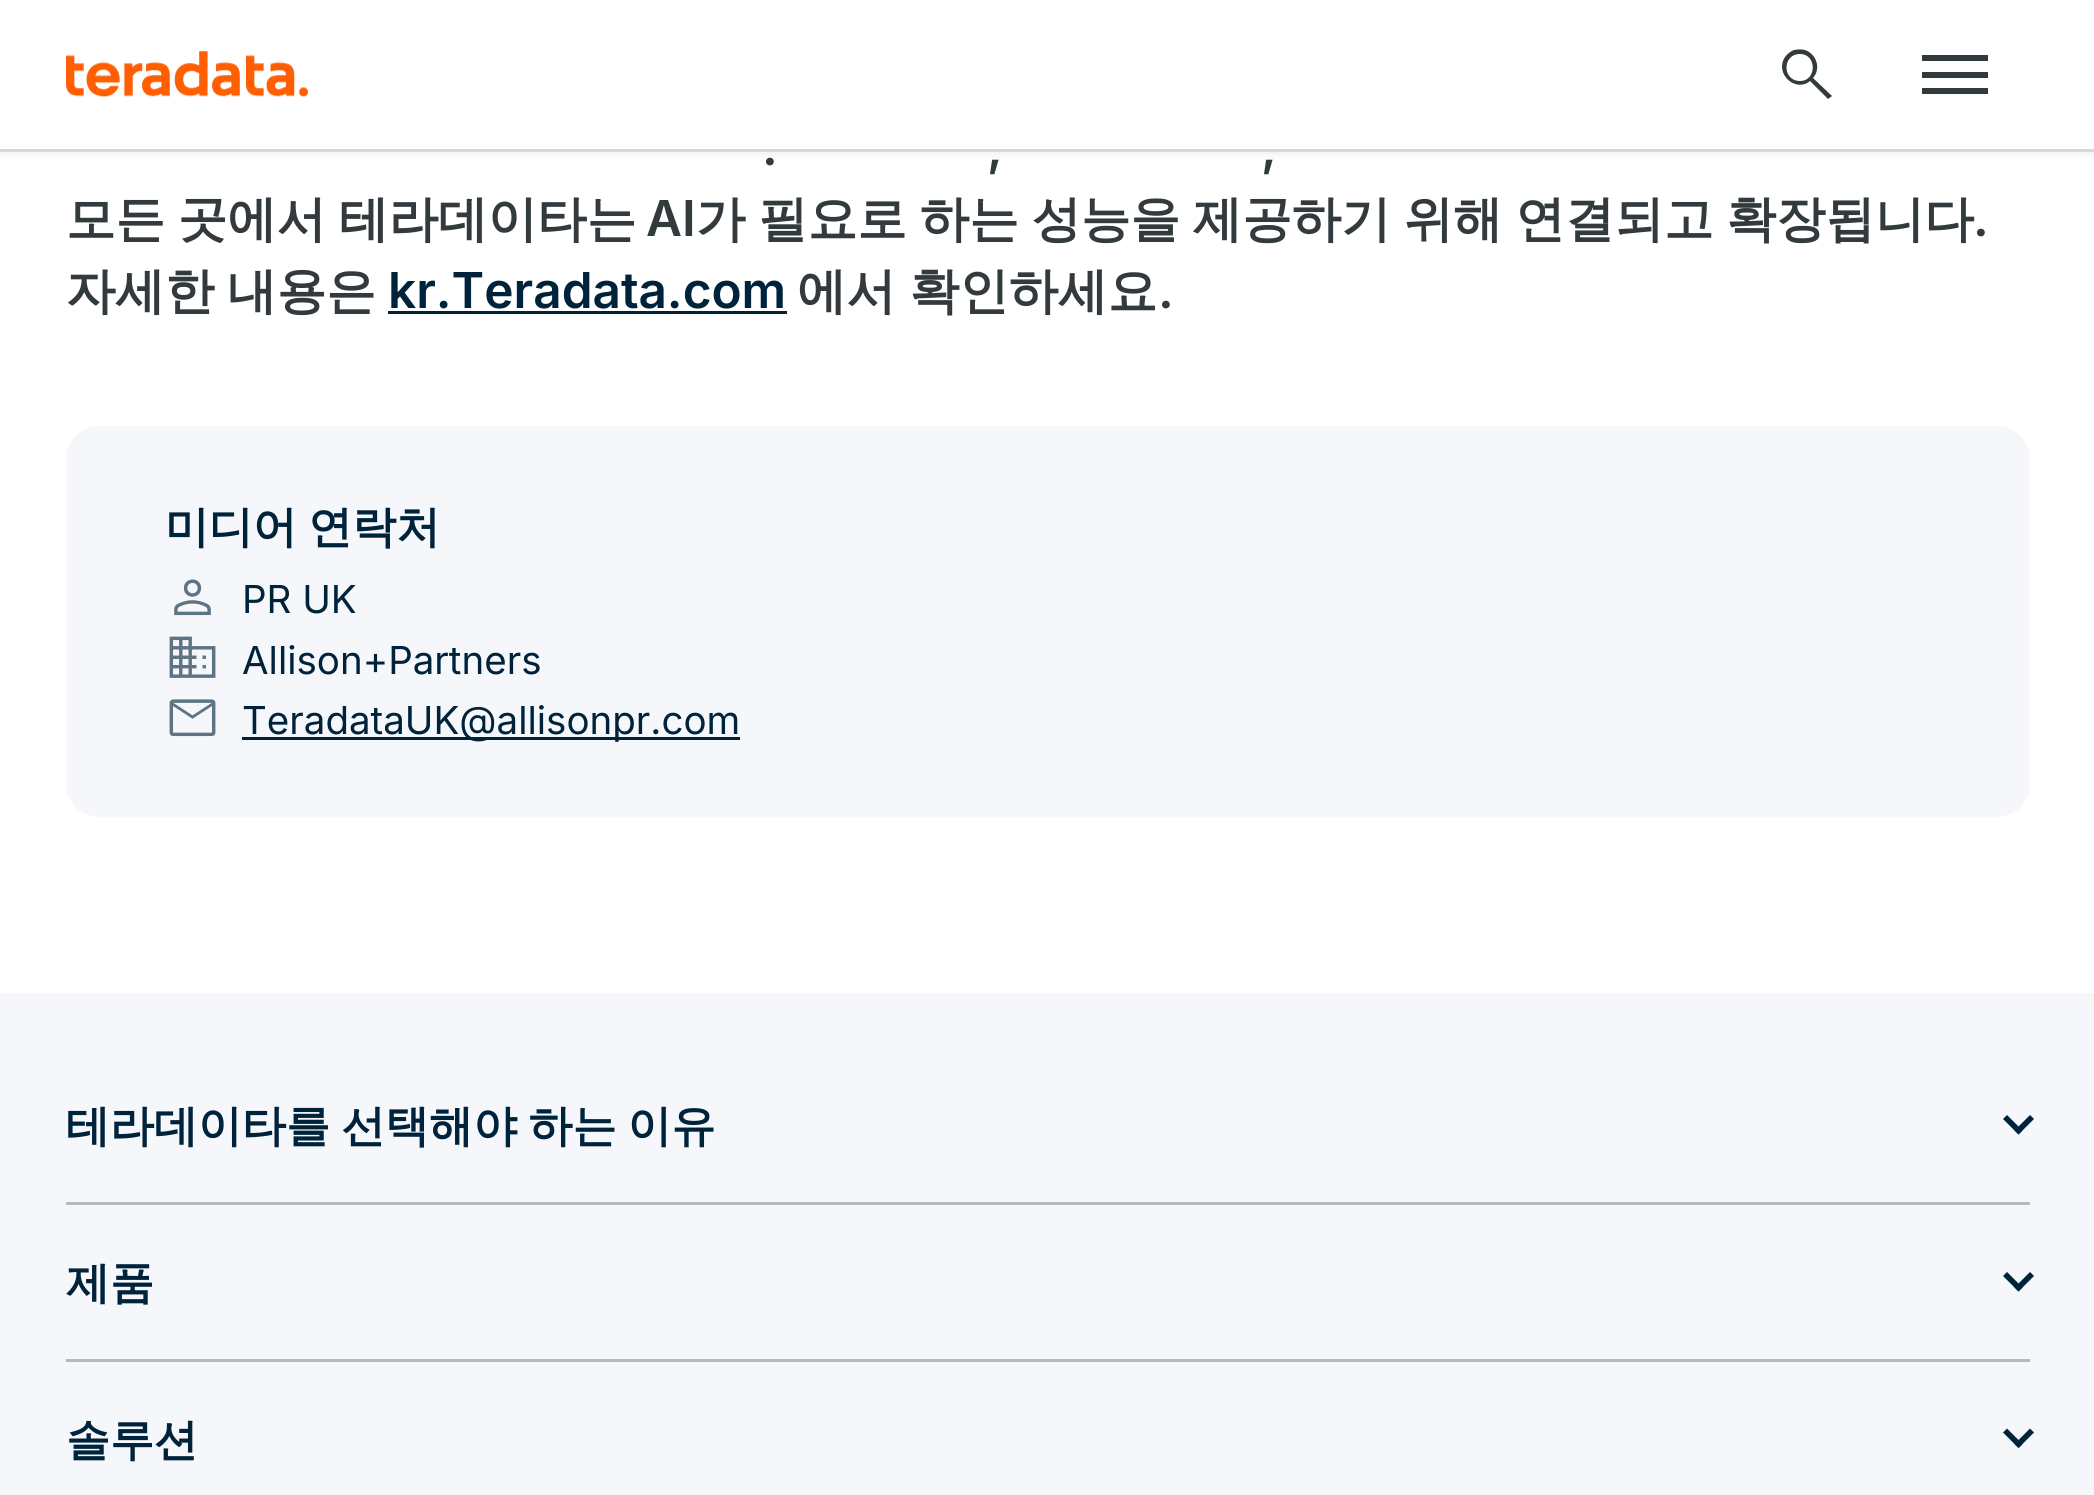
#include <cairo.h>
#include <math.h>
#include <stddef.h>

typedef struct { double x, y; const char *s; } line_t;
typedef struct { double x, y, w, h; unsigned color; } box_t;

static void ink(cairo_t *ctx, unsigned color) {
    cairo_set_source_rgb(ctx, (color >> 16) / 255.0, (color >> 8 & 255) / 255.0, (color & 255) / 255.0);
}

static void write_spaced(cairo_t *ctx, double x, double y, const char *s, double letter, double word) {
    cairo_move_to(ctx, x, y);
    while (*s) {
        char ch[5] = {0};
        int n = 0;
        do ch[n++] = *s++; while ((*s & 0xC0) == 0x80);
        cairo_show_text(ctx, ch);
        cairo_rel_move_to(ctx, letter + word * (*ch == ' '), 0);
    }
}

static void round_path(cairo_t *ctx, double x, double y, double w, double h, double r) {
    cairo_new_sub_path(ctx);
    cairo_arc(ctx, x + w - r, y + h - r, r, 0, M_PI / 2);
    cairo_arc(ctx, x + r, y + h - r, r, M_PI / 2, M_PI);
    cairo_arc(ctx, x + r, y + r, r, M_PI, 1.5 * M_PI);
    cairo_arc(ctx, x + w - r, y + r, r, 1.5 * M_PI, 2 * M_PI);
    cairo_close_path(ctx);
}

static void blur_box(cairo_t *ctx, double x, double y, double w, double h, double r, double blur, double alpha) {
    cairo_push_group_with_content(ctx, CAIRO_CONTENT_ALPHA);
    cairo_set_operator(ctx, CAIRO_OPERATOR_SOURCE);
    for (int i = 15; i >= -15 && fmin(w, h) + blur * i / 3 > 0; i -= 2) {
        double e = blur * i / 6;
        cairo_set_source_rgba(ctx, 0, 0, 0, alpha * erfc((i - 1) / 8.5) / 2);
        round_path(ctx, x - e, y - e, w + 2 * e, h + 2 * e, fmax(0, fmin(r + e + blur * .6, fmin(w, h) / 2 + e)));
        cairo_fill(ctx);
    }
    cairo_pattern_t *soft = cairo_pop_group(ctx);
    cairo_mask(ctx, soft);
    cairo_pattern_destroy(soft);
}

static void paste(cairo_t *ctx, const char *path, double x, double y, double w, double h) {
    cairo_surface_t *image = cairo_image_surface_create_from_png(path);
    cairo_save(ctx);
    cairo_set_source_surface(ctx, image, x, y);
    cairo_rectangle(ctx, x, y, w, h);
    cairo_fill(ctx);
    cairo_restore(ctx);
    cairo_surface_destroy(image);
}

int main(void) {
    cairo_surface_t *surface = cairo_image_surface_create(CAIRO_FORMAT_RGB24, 2094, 1495);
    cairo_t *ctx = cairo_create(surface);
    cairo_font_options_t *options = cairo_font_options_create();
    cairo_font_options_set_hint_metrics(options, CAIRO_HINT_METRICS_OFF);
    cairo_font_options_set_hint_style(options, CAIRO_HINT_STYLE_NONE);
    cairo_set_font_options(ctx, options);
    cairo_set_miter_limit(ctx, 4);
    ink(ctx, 0xFFFFFF);
    cairo_paint(ctx);
    ink(ctx, 0xE5E5E5);
    cairo_rectangle(ctx, 0, 149, 2094, 3);
    cairo_fill(ctx);
    cairo_save(ctx);
    cairo_set_fill_rule(ctx, CAIRO_FILL_RULE_EVEN_ODD);
    cairo_new_path(ctx);
    cairo_move_to(ctx, 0, 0);
    cairo_line_to(ctx, 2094, 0);
    cairo_line_to(ctx, 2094, 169);
    cairo_line_to(ctx, 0, 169);
    cairo_close_path(ctx);
    cairo_move_to(ctx, 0, 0);
    cairo_line_to(ctx, 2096, 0);
    cairo_line_to(ctx, 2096, 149);
    cairo_line_to(ctx, 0, 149);
    cairo_close_path(ctx);
    cairo_clip(ctx);
    ink(ctx, 0x000000);
    blur_box(ctx, 0, 3, 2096, 148, 0, 5.5, 0.12);
    cairo_restore(ctx);
    paste(ctx, "media/1.png", 66, 51, 242, 47);
    ink(ctx, 0x333A3E);
    cairo_new_path(ctx);
    cairo_move_to(ctx, 1828, 99);
    cairo_line_to(ctx, 1810, 81);
    cairo_curve_to(ctx, 1796, 93, 1774, 74, 1785, 57);
    cairo_curve_to(ctx, 1787, 54, 1791, 51, 1794, 50);
    cairo_curve_to(ctx, 1799, 49, 1805, 49, 1809, 52);
    cairo_curve_to(ctx, 1818, 58, 1820, 70, 1813, 78);
    cairo_line_to(ctx, 1832, 96);
    cairo_close_path(ctx);
    cairo_move_to(ctx, 1800, 81);
    cairo_curve_to(ctx, 1817, 81, 1817, 54, 1800, 54);
    cairo_curve_to(ctx, 1782, 54, 1782, 81, 1800, 81);
    cairo_close_path(ctx);
    cairo_fill(ctx);
    {
        static const box_t items[] = {
            {1922, 55, 66, 6, 0x333A3E},
            {1922, 72, 66, 6, 0x333A3E},
            {1922, 88, 66, 6, 0x333A3E},
        };
        for (size_t i = 0; i < sizeof items / sizeof *items; i++) {
            ink(ctx, items[i].color);
            cairo_rectangle(ctx, items[i].x, items[i].y, items[i].w, items[i].h);
            cairo_fill(ctx);
        }
    }
    cairo_select_font_face(ctx, "Inter SemiBold", CAIRO_FONT_SLANT_NORMAL, CAIRO_FONT_WEIGHT_NORMAL);
    cairo_set_font_size(ctx, 49.5);
    {
        static const line_t items[] = {
            {762, 165, "."},
            {987, 165, ","},
            {1261, 165, ","},
        };
        for (size_t i = 0; i < sizeof items / sizeof *items; i++) {
            cairo_move_to(ctx, items[i].x, items[i].y);
            cairo_show_text(ctx, items[i].s);
        }
    }
    cairo_select_font_face(ctx, "WenQuanYi Zen Hei", CAIRO_FONT_SLANT_NORMAL, CAIRO_FONT_WEIGHT_BOLD);
    write_spaced(ctx, 66, 236, "모든 곳에서 테라데이타는", 0, -2);
    cairo_select_font_face(ctx, "Inter SemiBold", CAIRO_FONT_SLANT_NORMAL, CAIRO_FONT_WEIGHT_NORMAL);
    cairo_move_to(ctx, 646, 236);
    cairo_show_text(ctx, "AI");
    cairo_select_font_face(ctx, "WenQuanYi Zen Hei", CAIRO_FONT_SLANT_NORMAL, CAIRO_FONT_WEIGHT_BOLD);
    write_spaced(ctx, 696, 236, "가 필요로 하는 성능을 제공하기 위해 연결되고 확장됩니다", 0, -2);
    cairo_select_font_face(ctx, "Inter SemiBold", CAIRO_FONT_SLANT_NORMAL, CAIRO_FONT_WEIGHT_NORMAL);
    cairo_move_to(ctx, 1973, 236);
    cairo_show_text(ctx, ".");
    cairo_select_font_face(ctx, "WenQuanYi Zen Hei", CAIRO_FONT_SLANT_NORMAL, CAIRO_FONT_WEIGHT_BOLD);
    write_spaced(ctx, 66, 308, "자세한 내용은", 0, -2);
    cairo_select_font_face(ctx, "Inter SemiBold", CAIRO_FONT_SLANT_NORMAL, CAIRO_FONT_WEIGHT_NORMAL);
    ink(ctx, 0x00233C);
    cairo_move_to(ctx, 388, 308);
    cairo_show_text(ctx, "kr.Teradata.com");
    cairo_rectangle(ctx, 388, 311, 399, 3);
    cairo_fill(ctx);
    cairo_select_font_face(ctx, "WenQuanYi Zen Hei", CAIRO_FONT_SLANT_NORMAL, CAIRO_FONT_WEIGHT_BOLD);
    ink(ctx, 0x333A3E);
    write_spaced(ctx, 797, 308, "에서 확인하세요", 0, -1);
    cairo_select_font_face(ctx, "Inter SemiBold", CAIRO_FONT_SLANT_NORMAL, CAIRO_FONT_WEIGHT_NORMAL);
    cairo_move_to(ctx, 1158, 308);
    cairo_show_text(ctx, ".");
    ink(ctx, 0xF6F7FB);
    round_path(ctx, 66, 426, 1964, 391, 33);
    cairo_fill(ctx);
    cairo_select_font_face(ctx, "WenQuanYi Zen Hei", CAIRO_FONT_SLANT_NORMAL, CAIRO_FONT_WEIGHT_BOLD);
    cairo_set_font_size(ctx, 44);
    ink(ctx, 0x00233C);
    write_spaced(ctx, 165, 542, "미디어 연락처", 0, -2);
    paste(ctx, "media/2.png", 174, 579, 37, 37);
    cairo_select_font_face(ctx, "Inter", CAIRO_FONT_SLANT_NORMAL, CAIRO_FONT_WEIGHT_NORMAL);
    cairo_set_font_size(ctx, 38.5);
    cairo_move_to(ctx, 242, 613);
    cairo_show_text(ctx, "PR UK");
    paste(ctx, "media/3.png", 169, 636, 47, 42);
    cairo_move_to(ctx, 242, 674);
    cairo_show_text(ctx, "Allison+Partners");
    paste(ctx, "media/4.png", 169, 699, 47, 38);
    cairo_rectangle(ctx, 242, 737, 498, 3);
    cairo_fill(ctx);
    cairo_move_to(ctx, 242, 734);
    cairo_show_text(ctx, "TeradataUK@allisonpr.com");
    ink(ctx, 0xF6F7FB);
    cairo_rectangle(ctx, 0, 993, 2094, 502);
    cairo_fill(ctx);
    ink(ctx, 0xB2B9C0);
    cairo_rectangle(ctx, 66, 1202, 1964, 3);
    cairo_fill(ctx);
    cairo_select_font_face(ctx, "WenQuanYi Zen Hei", CAIRO_FONT_SLANT_NORMAL, CAIRO_FONT_WEIGHT_BOLD);
    cairo_set_font_size(ctx, 44);
    ink(ctx, 0x00233C);
    write_spaced(ctx, 66, 1141, "테라데이타를 선택해야 하는 이유", 0, -2);
    cairo_new_path(ctx);
    cairo_move_to(ctx, 2030, 1115);
    cairo_line_to(ctx, 2034, 1119);
    cairo_line_to(ctx, 2018.5, 1134.5);
    cairo_line_to(ctx, 2014.5, 1130.5);
    cairo_close_path(ctx);
    cairo_fill(ctx);
    cairo_new_path(ctx);
    cairo_move_to(ctx, 2007, 1115);
    cairo_line_to(ctx, 2022.5, 1130.5);
    cairo_line_to(ctx, 2018.5, 1134.5);
    cairo_line_to(ctx, 2003, 1119);
    cairo_close_path(ctx);
    cairo_fill(ctx);
    ink(ctx, 0xB2B9C0);
    cairo_rectangle(ctx, 66, 1359, 1964, 3);
    cairo_fill(ctx);
    ink(ctx, 0x00233C);
    cairo_move_to(ctx, 66, 1298);
    cairo_show_text(ctx, "제품");
    cairo_new_path(ctx);
    cairo_move_to(ctx, 2030, 1272);
    cairo_line_to(ctx, 2034, 1276);
    cairo_line_to(ctx, 2018.5, 1291.5);
    cairo_line_to(ctx, 2014.5, 1287.5);
    cairo_close_path(ctx);
    cairo_fill(ctx);
    cairo_new_path(ctx);
    cairo_move_to(ctx, 2007, 1272);
    cairo_line_to(ctx, 2022.5, 1287.5);
    cairo_line_to(ctx, 2018.5, 1291.5);
    cairo_line_to(ctx, 2003, 1276);
    cairo_close_path(ctx);
    cairo_fill(ctx);
    cairo_move_to(ctx, 66, 1455);
    cairo_show_text(ctx, "솔루션");
    cairo_new_path(ctx);
    cairo_move_to(ctx, 2030, 1428.5);
    cairo_line_to(ctx, 2034, 1432.5);
    cairo_line_to(ctx, 2018.5, 1448);
    cairo_line_to(ctx, 2014.5, 1444);
    cairo_close_path(ctx);
    cairo_fill(ctx);
    cairo_new_path(ctx);
    cairo_move_to(ctx, 2007, 1428.5);
    cairo_line_to(ctx, 2022.5, 1444);
    cairo_line_to(ctx, 2018.5, 1448);
    cairo_line_to(ctx, 2003, 1432.5);
    cairo_close_path(ctx);
    cairo_fill(ctx);
    cairo_surface_write_to_png(surface, "image.png");
    cairo_font_options_destroy(options);
    cairo_destroy(ctx);
    cairo_surface_destroy(surface);
    return 0;
}
